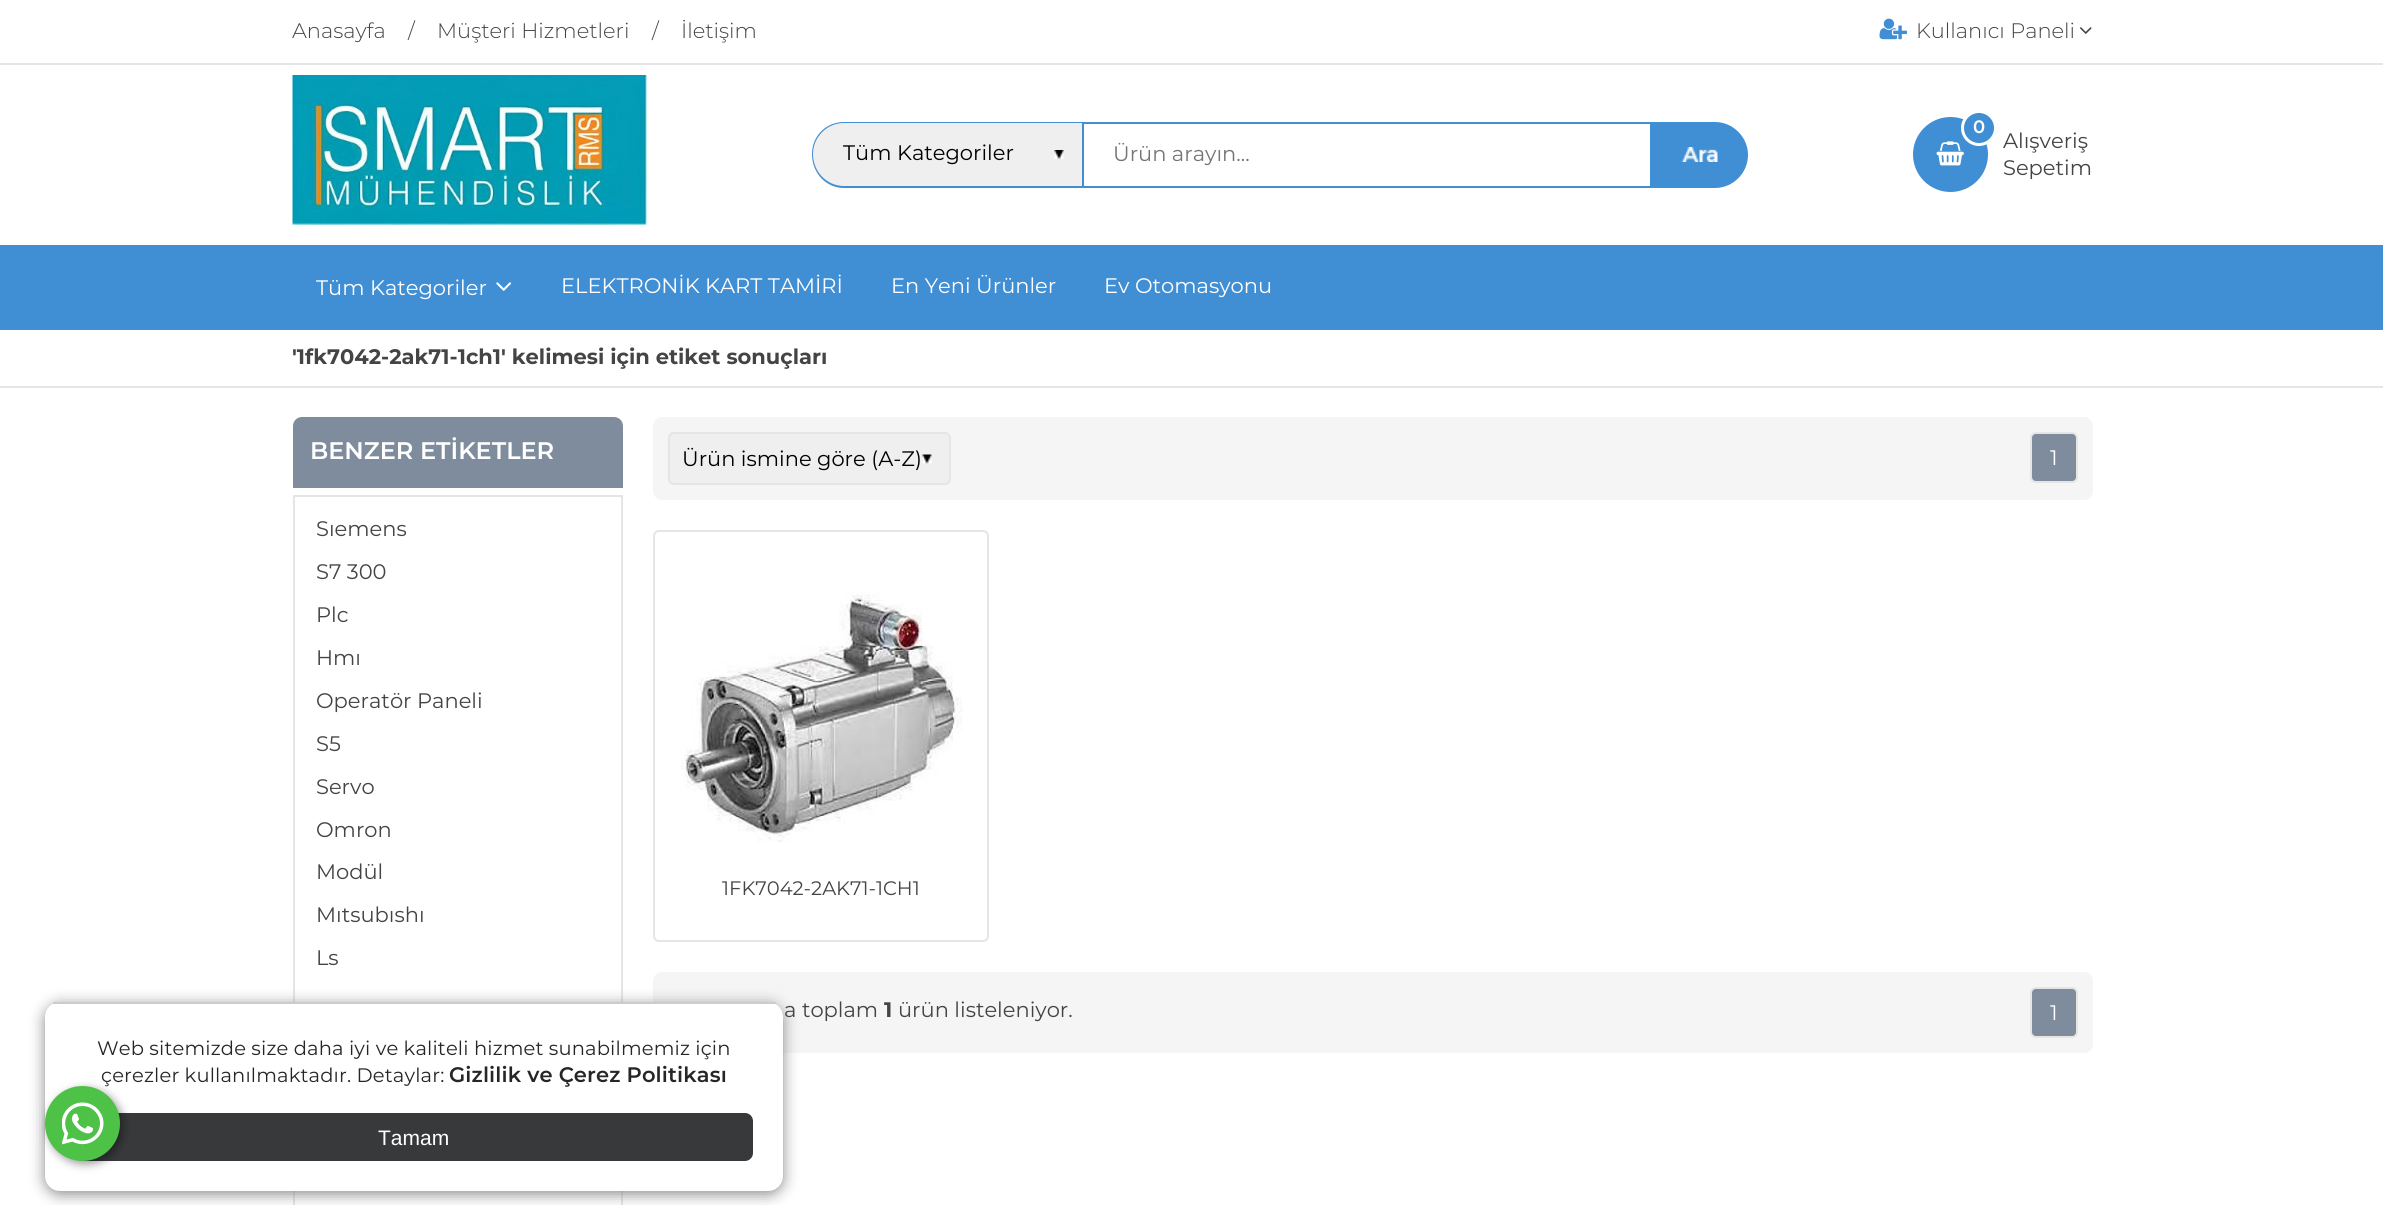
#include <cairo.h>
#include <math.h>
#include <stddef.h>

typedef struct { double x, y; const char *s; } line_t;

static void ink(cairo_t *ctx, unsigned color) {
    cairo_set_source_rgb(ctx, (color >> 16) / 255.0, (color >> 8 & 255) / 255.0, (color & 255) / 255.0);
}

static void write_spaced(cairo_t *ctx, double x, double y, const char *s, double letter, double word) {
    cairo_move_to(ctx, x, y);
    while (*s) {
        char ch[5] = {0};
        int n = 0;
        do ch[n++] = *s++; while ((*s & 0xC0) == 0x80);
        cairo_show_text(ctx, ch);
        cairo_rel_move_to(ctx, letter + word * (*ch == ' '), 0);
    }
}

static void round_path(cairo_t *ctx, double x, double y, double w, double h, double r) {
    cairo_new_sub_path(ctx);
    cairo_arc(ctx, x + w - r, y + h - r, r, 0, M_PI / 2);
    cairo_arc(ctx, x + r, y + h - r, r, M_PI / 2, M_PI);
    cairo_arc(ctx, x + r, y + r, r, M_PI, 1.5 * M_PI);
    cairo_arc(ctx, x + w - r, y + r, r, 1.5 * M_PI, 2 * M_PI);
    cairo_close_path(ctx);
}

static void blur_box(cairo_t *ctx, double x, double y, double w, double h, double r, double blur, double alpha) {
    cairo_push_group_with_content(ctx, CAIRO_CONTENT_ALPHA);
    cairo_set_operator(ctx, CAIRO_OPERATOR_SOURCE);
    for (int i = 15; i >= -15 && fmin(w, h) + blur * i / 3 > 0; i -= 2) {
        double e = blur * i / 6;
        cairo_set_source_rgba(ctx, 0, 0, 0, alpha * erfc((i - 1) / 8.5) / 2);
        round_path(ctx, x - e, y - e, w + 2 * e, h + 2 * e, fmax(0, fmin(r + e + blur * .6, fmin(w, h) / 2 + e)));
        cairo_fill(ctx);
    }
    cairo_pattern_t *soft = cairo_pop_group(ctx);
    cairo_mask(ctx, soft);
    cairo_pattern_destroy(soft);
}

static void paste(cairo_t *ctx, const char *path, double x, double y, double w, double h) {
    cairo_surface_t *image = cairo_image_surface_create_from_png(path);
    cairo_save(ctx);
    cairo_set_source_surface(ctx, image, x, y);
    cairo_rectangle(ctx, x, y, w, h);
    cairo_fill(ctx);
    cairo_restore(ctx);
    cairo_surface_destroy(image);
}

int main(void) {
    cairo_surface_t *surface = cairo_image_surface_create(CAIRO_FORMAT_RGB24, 2383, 1205);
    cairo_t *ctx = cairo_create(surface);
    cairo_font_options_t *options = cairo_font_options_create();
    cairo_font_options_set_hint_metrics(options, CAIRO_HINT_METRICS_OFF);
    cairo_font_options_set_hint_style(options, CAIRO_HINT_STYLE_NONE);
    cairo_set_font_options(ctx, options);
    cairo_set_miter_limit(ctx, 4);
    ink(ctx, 0xFFFFFF);
    cairo_paint(ctx);
    cairo_rectangle(ctx, 294, 496, 328, 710);
    ink(ctx, 0xE5E5E5);
    cairo_stroke(ctx);
    ink(ctx, 0xF5F5F5);
    round_path(ctx, 653, 972, 1440, 81, 9);
    cairo_fill(ctx);
    ink(ctx, 0x888888);
    blur_box(ctx, 45, 1005, 738, 189, 15, 7.5, 1);
    ink(ctx, 0xFFFFFF);
    round_path(ctx, 45, 1002, 738, 189, 15);
    cairo_fill(ctx);
    ink(ctx, 0x37393B);
    round_path(ctx, 75, 1113, 678, 48, 8);
    cairo_fill(ctx);
    ink(ctx, 0x000000);
    blur_box(ctx, 48, 1089, 75, 75, 37.5, 4.5, 0.4);
    cairo_select_font_face(ctx, "Montserrat", CAIRO_FONT_SLANT_NORMAL, CAIRO_FONT_WEIGHT_NORMAL);
    cairo_set_font_size(ctx, 19.5);
    ink(ctx, 0x262626);
    write_spaced(ctx, 101, 1082, "çerezler kullanılmaktadır. Detaylar:", 0.15, 0);
    ink(ctx, 0x4DC247);
    cairo_new_path(ctx);
    cairo_arc(ctx, 82.5, 1123.5, 37.5, 0, 2 * M_PI);
    cairo_fill(ctx);
    paste(ctx, "media/1.png", 62, 1102, 42, 43);
    ink(ctx, 0xE5E5E5);
    cairo_rectangle(ctx, 0, 63, 2383, 2);
    cairo_fill(ctx);
    cairo_select_font_face(ctx, "Montserrat Light", CAIRO_FONT_SLANT_NORMAL, CAIRO_FONT_WEIGHT_NORMAL);
    cairo_set_font_size(ctx, 21);
    ink(ctx, 0x444444);
    {
        static const line_t items[] = {
            {292, 38, "Anasayfa"},
            {408, 38, "/"},
            {437, 38, "Müşteri Hizmetleri"},
            {652, 38, "/"},
            {681, 38, "İletişim"},
        };
        for (size_t i = 0; i < sizeof items / sizeof *items; i++) {
            cairo_move_to(ctx, items[i].x, items[i].y);
            cairo_show_text(ctx, items[i].s);
        }
    }
    paste(ctx, "media/2.png", 1879, 18, 28, 22);
    cairo_move_to(ctx, 1916, 38);
    cairo_show_text(ctx, "Kullanıcı Paneli");
    paste(ctx, "media/3.png", 2080, 27, 12, 7);
    paste(ctx, "media/4.png", 292, 75, 355, 150);
    ink(ctx, 0xEFEFEF);
    cairo_new_path(ctx);
    cairo_move_to(ctx, 845, 122);
    cairo_line_to(ctx, 1082, 122);
    cairo_line_to(ctx, 1082, 188);
    cairo_line_to(ctx, 845, 188);
    cairo_curve_to(ctx, 827, 188, 812, 173, 812, 155);
    cairo_curve_to(ctx, 812, 137, 827, 122, 845, 122);
    cairo_close_path(ctx);
    cairo_fill(ctx);
    paste(ctx, "media/5.png", 1054, 150, 10, 9);
    ink(ctx, 0x408ED4);
    cairo_set_fill_rule(ctx, CAIRO_FILL_RULE_EVEN_ODD);
    cairo_new_path(ctx);
    cairo_move_to(ctx, 844, 122);
    cairo_line_to(ctx, 1082, 122);
    cairo_line_to(ctx, 1082, 188);
    cairo_line_to(ctx, 844, 188);
    cairo_curve_to(ctx, 826, 188, 812, 173, 812, 154);
    cairo_curve_to(ctx, 812, 136, 826, 122, 844, 122);
    cairo_close_path(ctx);
    cairo_move_to(ctx, 844, 123);
    cairo_line_to(ctx, 1082, 123);
    cairo_line_to(ctx, 1082, 186);
    cairo_line_to(ctx, 844, 186);
    cairo_curve_to(ctx, 827, 186, 813, 172, 813, 154);
    cairo_curve_to(ctx, 813, 137, 827, 123, 844, 123);
    cairo_close_path(ctx);
    cairo_fill(ctx);
    cairo_select_font_face(ctx, "Montserrat", CAIRO_FONT_SLANT_NORMAL, CAIRO_FONT_WEIGHT_NORMAL);
    ink(ctx, 0x000000);
    cairo_move_to(ctx, 843, 160);
    cairo_show_text(ctx, "Tüm Kategoriler");
    cairo_rectangle(ctx, 1083, 123, 568, 64);
    ink(ctx, 0x408ED4);
    cairo_stroke(ctx);
    ink(ctx, 0x757575);
    cairo_move_to(ctx, 1113, 161);
    cairo_show_text(ctx, "Ürün arayın...");
    ink(ctx, 0x408ED4);
    cairo_new_path(ctx);
    cairo_move_to(ctx, 1652, 122);
    cairo_line_to(ctx, 1715, 122);
    cairo_curve_to(ctx, 1733, 122, 1748, 137, 1748, 155);
    cairo_curve_to(ctx, 1748, 173, 1733, 188, 1715, 188);
    cairo_line_to(ctx, 1652, 188);
    cairo_close_path(ctx);
    cairo_fill(ctx);
    paste(ctx, "media/6.png", 1681, 147, 37, 15);
    cairo_arc(ctx, 1950.5, 154.5, 37.5, 0, 2 * M_PI);
    cairo_fill(ctx);
    paste(ctx, "media/7.png", 1936, 141, 28, 25);
    cairo_arc(ctx, 1979, 128, 16.5, 0, 2 * M_PI);
    cairo_fill_preserve(ctx);
    ink(ctx, 0xFFFFFF);
    cairo_set_line_width(ctx, 3);
    cairo_stroke(ctx);
    cairo_select_font_face(ctx, "Montserrat SemiBold", CAIRO_FONT_SLANT_NORMAL, CAIRO_FONT_WEIGHT_NORMAL);
    cairo_set_font_size(ctx, 18);
    cairo_move_to(ctx, 1973, 133);
    cairo_show_text(ctx, "0");
    cairo_select_font_face(ctx, "Montserrat", CAIRO_FONT_SLANT_NORMAL, CAIRO_FONT_WEIGHT_NORMAL);
    cairo_set_font_size(ctx, 21);
    ink(ctx, 0x444444);
    cairo_move_to(ctx, 2003, 148);
    cairo_show_text(ctx, "Alışveriş");
    cairo_move_to(ctx, 2003, 175);
    cairo_show_text(ctx, "Sepetim");
    ink(ctx, 0x408ED4);
    cairo_rectangle(ctx, 0, 245, 2383, 85);
    cairo_fill(ctx);
    ink(ctx, 0xFFFFFF);
    cairo_move_to(ctx, 316, 295);
    cairo_show_text(ctx, "Tüm Kategoriler");
    paste(ctx, "media/8.png", 496, 282, 16, 9);
    {
        static const line_t items[] = {
            {561, 293, "ELEKTRONİK KART TAMİRİ"},
            {891, 293, "En Yeni Ürünler"},
            {1104, 293, "Ev Otomasyonu"},
        };
        for (size_t i = 0; i < sizeof items / sizeof *items; i++) {
            cairo_move_to(ctx, items[i].x, items[i].y);
            cairo_show_text(ctx, items[i].s);
        }
    }
    ink(ctx, 0xE5E5E5);
    cairo_rectangle(ctx, 0, 386, 2383, 2);
    cairo_fill(ctx);
    cairo_select_font_face(ctx, "Montserrat", CAIRO_FONT_SLANT_NORMAL, CAIRO_FONT_WEIGHT_BOLD);
    ink(ctx, 0x444444);
    cairo_move_to(ctx, 292, 364);
    cairo_show_text(ctx, "'1fk7042-2ak71-1ch1' kelimesi için etiket sonuçları");
    ink(ctx, 0xCCCCCC);
    cairo_rectangle(ctx, 53, 1002, 723, 2);
    cairo_fill(ctx);
    cairo_select_font_face(ctx, "Montserrat", CAIRO_FONT_SLANT_NORMAL, CAIRO_FONT_WEIGHT_NORMAL);
    cairo_set_font_size(ctx, 19.5);
    ink(ctx, 0x262626);
    write_spaced(ctx, 97, 1055, "Web sitemizde size daha iyi ve kaliteli hizmet sunabilmemiz için", 0.15, 0);
    cairo_select_font_face(ctx, "Montserrat SemiBold", CAIRO_FONT_SLANT_NORMAL, CAIRO_FONT_WEIGHT_NORMAL);
    cairo_set_font_size(ctx, 21);
    write_spaced(ctx, 449, 1082, "Gizlilik ve Çerez Politikası", 0.15, 0);
    cairo_select_font_face(ctx, "Liberation Sans", CAIRO_FONT_SLANT_NORMAL, CAIRO_FONT_WEIGHT_NORMAL);
    ink(ctx, 0xFFFFFF);
    cairo_move_to(ctx, 378, 1145);
    cairo_show_text(ctx, "Tamam");
    ink(ctx, 0x7E8C9E);
    cairo_new_path(ctx);
    cairo_move_to(ctx, 302, 417);
    cairo_line_to(ctx, 614, 417);
    cairo_curve_to(ctx, 619, 417, 623, 421, 623, 426);
    cairo_line_to(ctx, 623, 488);
    cairo_line_to(ctx, 293, 488);
    cairo_line_to(ctx, 293, 426);
    cairo_curve_to(ctx, 293, 421, 297, 417, 302, 417);
    cairo_close_path(ctx);
    cairo_fill(ctx);
    cairo_select_font_face(ctx, "Montserrat SemiBold", CAIRO_FONT_SLANT_NORMAL, CAIRO_FONT_WEIGHT_NORMAL);
    cairo_set_font_size(ctx, 24);
    ink(ctx, 0xFFFFFF);
    cairo_move_to(ctx, 310, 459);
    cairo_show_text(ctx, "BENZER ETİKETLER");
    cairo_select_font_face(ctx, "Montserrat", CAIRO_FONT_SLANT_NORMAL, CAIRO_FONT_WEIGHT_NORMAL);
    cairo_set_font_size(ctx, 21);
    ink(ctx, 0x444444);
    {
        static const line_t items[] = {
            {316, 536, "Sıemens"},
            {316, 579, "S7 300"},
            {316, 622, "Plc"},
            {316, 665, "Hmı"},
            {316, 708, "Operatör Paneli"},
            {316, 751, "S5"},
            {316, 794, "Servo"},
            {316, 837, "Omron"},
            {316, 879, "Modül"},
            {316, 922, "Mıtsubıshı"},
            {316, 965, "Ls"},
        };
        for (size_t i = 0; i < sizeof items / sizeof *items; i++) {
            cairo_move_to(ctx, items[i].x, items[i].y);
            cairo_show_text(ctx, items[i].s);
        }
    }
    ink(ctx, 0xF5F5F5);
    round_path(ctx, 653, 417, 1440, 83, 9);
    cairo_fill(ctx);
    ink(ctx, 0xEFEFEF);
    round_path(ctx, 668, 432, 283, 53, 6);
    cairo_fill(ctx);
    paste(ctx, "media/9.png", 922, 454, 10, 10);
    round_path(ctx, 669, 433, 281, 51, 5);
    ink(ctx, 0xE5E5E5);
    cairo_set_line_width(ctx, 2);
    cairo_stroke(ctx);
    ink(ctx, 0x000000);
    cairo_move_to(ctx, 682, 466);
    cairo_show_text(ctx, "Ürün ismine göre (A-Z)");
    ink(ctx, 0x7E8C9E);
    round_path(ctx, 2031, 433, 46, 49, 5);
    cairo_fill_preserve(ctx);
    ink(ctx, 0xE5E5E5);
    cairo_stroke(ctx);
    ink(ctx, 0xFFFFFF);
    cairo_move_to(ctx, 2050, 465);
    cairo_show_text(ctx, "1");
    round_path(ctx, 654, 531, 334, 410, 5);
    ink(ctx, 0xE5E5E5);
    cairo_stroke(ctx);
    paste(ctx, "media/10.png", 681, 592, 282, 250);
    cairo_set_font_size(ctx, 19.5);
    ink(ctx, 0x444444);
    cairo_move_to(ctx, 722, 895);
    cairo_show_text(ctx, "1FK7042-2AK71-1CH1");
    cairo_set_font_size(ctx, 21);
    cairo_move_to(ctx, 784, 1017);
    cairo_show_text(ctx, "a toplam");
    cairo_select_font_face(ctx, "Montserrat", CAIRO_FONT_SLANT_NORMAL, CAIRO_FONT_WEIGHT_BOLD);
    cairo_move_to(ctx, 884, 1017);
    cairo_show_text(ctx, "1");
    cairo_select_font_face(ctx, "Montserrat", CAIRO_FONT_SLANT_NORMAL, CAIRO_FONT_WEIGHT_NORMAL);
    cairo_move_to(ctx, 898, 1017);
    cairo_show_text(ctx, "ürün listeleniyor.");
    ink(ctx, 0x7E8C9E);
    round_path(ctx, 2031, 988, 46, 49, 5);
    cairo_fill_preserve(ctx);
    ink(ctx, 0xE5E5E5);
    cairo_stroke(ctx);
    ink(ctx, 0xFFFFFF);
    cairo_move_to(ctx, 2050, 1020);
    cairo_show_text(ctx, "1");
    cairo_surface_write_to_png(surface, "image.png");
    cairo_font_options_destroy(options);
    cairo_destroy(ctx);
    cairo_surface_destroy(surface);
    return 0;
}
